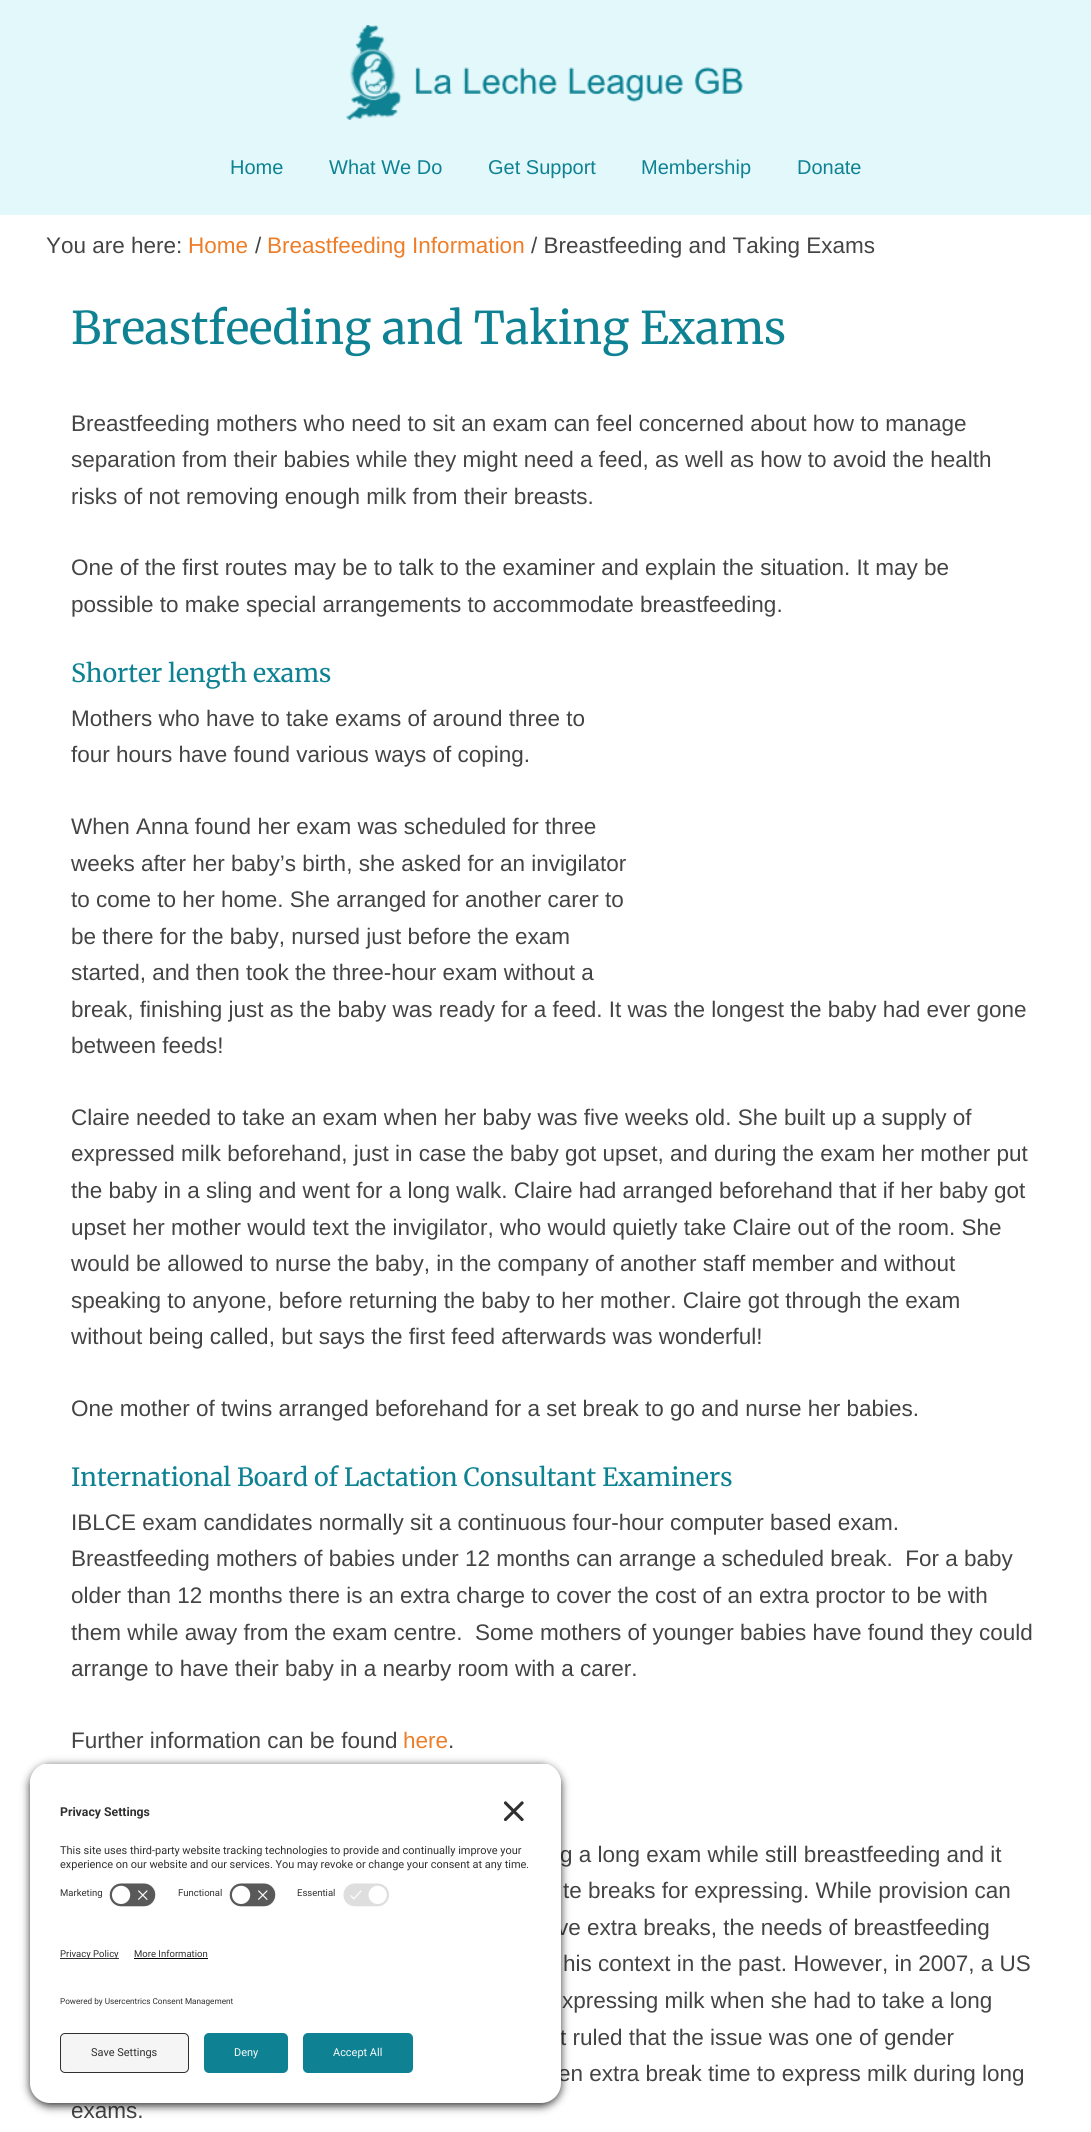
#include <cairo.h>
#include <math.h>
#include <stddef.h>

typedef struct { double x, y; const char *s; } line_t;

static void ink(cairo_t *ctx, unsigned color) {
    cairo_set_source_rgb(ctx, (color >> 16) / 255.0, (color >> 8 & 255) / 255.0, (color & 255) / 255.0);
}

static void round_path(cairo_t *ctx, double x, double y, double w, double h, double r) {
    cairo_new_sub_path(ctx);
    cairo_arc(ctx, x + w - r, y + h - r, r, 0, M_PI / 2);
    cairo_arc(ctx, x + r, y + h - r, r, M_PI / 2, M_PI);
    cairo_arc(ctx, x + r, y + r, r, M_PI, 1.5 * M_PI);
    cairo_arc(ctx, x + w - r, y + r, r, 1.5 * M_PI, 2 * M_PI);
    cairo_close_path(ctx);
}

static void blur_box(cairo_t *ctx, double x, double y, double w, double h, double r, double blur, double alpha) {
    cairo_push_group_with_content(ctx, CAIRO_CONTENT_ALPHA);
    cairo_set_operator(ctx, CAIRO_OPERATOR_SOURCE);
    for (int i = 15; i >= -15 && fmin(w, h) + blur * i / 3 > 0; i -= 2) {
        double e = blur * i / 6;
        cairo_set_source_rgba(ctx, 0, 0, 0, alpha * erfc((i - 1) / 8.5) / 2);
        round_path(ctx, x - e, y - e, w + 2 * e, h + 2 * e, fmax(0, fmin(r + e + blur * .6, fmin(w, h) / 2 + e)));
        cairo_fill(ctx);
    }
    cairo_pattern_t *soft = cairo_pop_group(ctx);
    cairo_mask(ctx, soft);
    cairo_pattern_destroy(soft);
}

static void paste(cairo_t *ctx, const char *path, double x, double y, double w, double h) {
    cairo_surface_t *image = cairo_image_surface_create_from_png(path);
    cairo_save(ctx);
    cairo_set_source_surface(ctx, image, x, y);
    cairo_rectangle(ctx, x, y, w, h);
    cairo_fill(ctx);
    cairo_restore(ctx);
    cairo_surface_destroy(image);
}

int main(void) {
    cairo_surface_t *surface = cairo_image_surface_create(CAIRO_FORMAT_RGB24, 1091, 2132);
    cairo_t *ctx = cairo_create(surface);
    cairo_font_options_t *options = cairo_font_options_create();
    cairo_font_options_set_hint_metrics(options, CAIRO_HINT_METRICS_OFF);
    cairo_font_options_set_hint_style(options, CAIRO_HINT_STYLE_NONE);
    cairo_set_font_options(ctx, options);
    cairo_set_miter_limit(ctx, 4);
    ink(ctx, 0xFFFFFF);
    cairo_paint(ctx);
    ink(ctx, 0xE2F8FB);
    cairo_rectangle(ctx, 0, 0, 1091, 215);
    cairo_fill(ctx);
    paste(ctx, "media/1.png", 346, 25, 397, 95);
    cairo_select_font_face(ctx, "Liberation Sans", CAIRO_FONT_SLANT_NORMAL, CAIRO_FONT_WEIGHT_NORMAL);
    cairo_set_font_size(ctx, 20);
    ink(ctx, 0x0E8293);
    {
        static const line_t items[] = {
            {230, 174, "Home"},
            {329, 174, "What We Do"},
            {488, 174, "Get Support"},
            {641, 174, "Membership"},
            {797, 174, "Donate"},
        };
        for (size_t i = 0; i < sizeof items / sizeof *items; i++) {
            cairo_move_to(ctx, items[i].x, items[i].y);
            cairo_show_text(ctx, items[i].s);
        }
    }
    cairo_set_font_size(ctx, 22.5);
    ink(ctx, 0x444444);
    cairo_move_to(ctx, 46, 253);
    cairo_show_text(ctx, "You are here:");
    ink(ctx, 0xEE7D28);
    cairo_move_to(ctx, 188, 253);
    cairo_show_text(ctx, "Home");
    ink(ctx, 0x444444);
    cairo_move_to(ctx, 255, 253);
    cairo_show_text(ctx, "/");
    ink(ctx, 0xEE7D28);
    cairo_move_to(ctx, 267, 253);
    cairo_show_text(ctx, "Breastfeeding Information");
    ink(ctx, 0x444444);
    cairo_move_to(ctx, 531, 253);
    cairo_show_text(ctx, "/ Breastfeeding and Taking Exams");
    cairo_select_font_face(ctx, "Merriweather", CAIRO_FONT_SLANT_NORMAL, CAIRO_FONT_WEIGHT_NORMAL);
    cairo_set_font_size(ctx, 45);
    ink(ctx, 0x0E8293);
    cairo_move_to(ctx, 71, 344);
    cairo_show_text(ctx, "Breastfeeding and Taking Exams");
    cairo_select_font_face(ctx, "Liberation Sans", CAIRO_FONT_SLANT_NORMAL, CAIRO_FONT_WEIGHT_NORMAL);
    cairo_set_font_size(ctx, 22.5);
    ink(ctx, 0x444444);
    {
        static const line_t items[] = {
            {71, 431, "Breastfeeding mothers who need to sit an exam can feel concerned about how to manage"},
            {71, 467, "separation from their babies while they might need a feed, as well as how to avoid the health"},
            {71, 504, "risks of not removing enough milk from their breasts."},
            {71, 575, "One of the first routes may be to talk to the examiner and explain the situation. It may be"},
            {71, 612, "possible to make special arrangements to accommodate breastfeeding."},
        };
        for (size_t i = 0; i < sizeof items / sizeof *items; i++) {
            cairo_move_to(ctx, items[i].x, items[i].y);
            cairo_show_text(ctx, items[i].s);
        }
    }
    cairo_select_font_face(ctx, "Merriweather", CAIRO_FONT_SLANT_NORMAL, CAIRO_FONT_WEIGHT_NORMAL);
    cairo_set_font_size(ctx, 25);
    ink(ctx, 0x0E8293);
    cairo_move_to(ctx, 71, 682);
    cairo_show_text(ctx, "Shorter length exams");
    cairo_select_font_face(ctx, "Liberation Sans", CAIRO_FONT_SLANT_NORMAL, CAIRO_FONT_WEIGHT_NORMAL);
    cairo_set_font_size(ctx, 22.5);
    ink(ctx, 0x444444);
    {
        static const line_t items[] = {
            {71, 726, "Mothers who have to take exams of around three to"},
            {71, 762, "four hours have found various ways of coping."},
            {71, 834, "When Anna found her exam was scheduled for three"},
            {71, 871, "weeks after her baby’s birth, she asked for an invigilator"},
            {71, 907, "to come to her home. She arranged for another carer to"},
            {71, 944, "be there for the baby, nursed just before the exam"},
            {71, 980, "started, and then took the three-hour exam without a"},
            {71, 1017, "break, finishing just as the baby was ready for a feed. It was the longest the baby had ever gone"},
            {71, 1053, "between feeds!"},
            {71, 1125, "Claire needed to take an exam when her baby was five weeks old. She built up a supply of"},
            {71, 1161, "expressed milk beforehand, just in case the baby got upset, and during the exam her mother put"},
            {71, 1198, "the baby in a sling and went for a long walk. Claire had arranged beforehand that if her baby got"},
            {71, 1235, "upset her mother would text the invigilator, who would quietly take Claire out of the room. She"},
            {71, 1271, "would be allowed to nurse the baby, in the company of another staff member and without"},
            {71, 1308, "speaking to anyone, before returning the baby to her mother. Claire got through the exam"},
            {71, 1344, "without being called, but says the first feed afterwards was wonderful!"},
            {71, 1416, "One mother of twins arranged beforehand for a set break to go and nurse her babies."},
        };
        for (size_t i = 0; i < sizeof items / sizeof *items; i++) {
            cairo_move_to(ctx, items[i].x, items[i].y);
            cairo_show_text(ctx, items[i].s);
        }
    }
    cairo_select_font_face(ctx, "Merriweather", CAIRO_FONT_SLANT_NORMAL, CAIRO_FONT_WEIGHT_NORMAL);
    cairo_set_font_size(ctx, 25);
    ink(ctx, 0x0E8293);
    cairo_move_to(ctx, 71, 1486);
    cairo_show_text(ctx, "International Board of Lactation Consultant Examiners");
    cairo_select_font_face(ctx, "Liberation Sans", CAIRO_FONT_SLANT_NORMAL, CAIRO_FONT_WEIGHT_NORMAL);
    cairo_set_font_size(ctx, 22.5);
    ink(ctx, 0x444444);
    {
        static const line_t items[] = {
            {71, 1530, "IBLCE exam candidates normally sit a continuous four-hour computer based exam."},
            {71, 1566, "Breastfeeding mothers of babies under 12 months can arrange a scheduled break.  For a baby"},
            {71, 1603, "older than 12 months there is an extra charge to cover the cost of an extra proctor to be with"},
            {71, 1640, "them while away from the exam centre.  Some mothers of younger babies have found they could"},
            {71, 1676, "arrange to have their baby in a nearby room with a carer."},
            {71, 1748, "Further information can be found"},
        };
        for (size_t i = 0; i < sizeof items / sizeof *items; i++) {
            cairo_move_to(ctx, items[i].x, items[i].y);
            cairo_show_text(ctx, items[i].s);
        }
    }
    ink(ctx, 0xEE7D28);
    cairo_move_to(ctx, 403, 1748);
    cairo_show_text(ctx, "here");
    ink(ctx, 0x444444);
    {
        static const line_t items[] = {
            {448, 1748, "."},
            {560, 1862, "g a long exam while still breastfeeding and it"},
            {563, 1898, "te breaks for expressing. While provision can"},
            {557, 1935, "ve extra breaks, the needs of breastfeeding"},
            {563, 1971, "his context in the past. However, in 2007, a US"},
            {562, 2008, "xpressing milk when she had to take a long"},
            {560, 2045, "t ruled that the issue was one of gender"},
            {558, 2081, "en extra break time to express milk during long"},
            {71, 2118, "exams."},
        };
        for (size_t i = 0; i < sizeof items / sizeof *items; i++) {
            cairo_move_to(ctx, items[i].x, items[i].y);
            cairo_show_text(ctx, items[i].s);
        }
    }
    ink(ctx, 0x000000);
    blur_box(ctx, 30, 1766, 531, 340, 20, 4.5, 0.8);
    cairo_save(ctx);
    cairo_new_path(ctx);
    cairo_move_to(ctx, 50, 1763);
    cairo_line_to(ctx, 541, 1763);
    cairo_curve_to(ctx, 552, 1763, 561, 1772, 561, 1783);
    cairo_line_to(ctx, 561, 1926);
    cairo_line_to(ctx, 30, 1926);
    cairo_line_to(ctx, 30, 1783);
    cairo_curve_to(ctx, 30, 1772, 39, 1763, 50, 1763);
    cairo_close_path(ctx);
    cairo_clip(ctx);
    ink(ctx, 0xFFFFFF);
    cairo_rectangle(ctx, 30, 1764, 531, 162);
    cairo_fill(ctx);
    cairo_rectangle(ctx, 30, 1764, 531, 112);
    cairo_fill(ctx);
    cairo_restore(ctx);
    cairo_select_font_face(ctx, "Roboto", CAIRO_FONT_SLANT_NORMAL, CAIRO_FONT_WEIGHT_BOLD);
    cairo_set_font_size(ctx, 12.25);
    ink(ctx, 0x303030);
    cairo_move_to(ctx, 60, 1816);
    cairo_show_text(ctx, "Privacy Settings");
    paste(ctx, "media/2.png", 504, 1801, 20, 20);
    cairo_select_font_face(ctx, "Roboto", CAIRO_FONT_SLANT_NORMAL, CAIRO_FONT_WEIGHT_NORMAL);
    cairo_set_font_size(ctx, 10.95);
    cairo_move_to(ctx, 60, 1854);
    cairo_show_text(ctx, "This site uses third-party website tracking technologies to provide and continually improve your");
    cairo_move_to(ctx, 60, 1868);
    cairo_show_text(ctx, "experience on our website and our services. You may revoke or change your consent at any time.");
    cairo_set_font_size(ctx, 9.5);
    cairo_move_to(ctx, 60, 1896);
    cairo_show_text(ctx, "Marketing");
    paste(ctx, "media/3.png", 109, 1883, 47, 24);
    cairo_move_to(ctx, 178, 1896);
    cairo_show_text(ctx, "Functional");
    paste(ctx, "media/3.png", 229, 1883, 47, 24);
    cairo_move_to(ctx, 297, 1896);
    cairo_show_text(ctx, "Essential");
    paste(ctx, "media/4.png", 343, 1883, 46, 24);
    ink(ctx, 0xFFFFFF);
    cairo_new_path(ctx);
    cairo_move_to(ctx, 30, 1926);
    cairo_line_to(ctx, 561, 1926);
    cairo_line_to(ctx, 561, 2083);
    cairo_curve_to(ctx, 561, 2094, 552, 2103, 541, 2103);
    cairo_line_to(ctx, 50, 2103);
    cairo_curve_to(ctx, 39, 2103, 30, 2094, 30, 2083);
    cairo_close_path(ctx);
    cairo_fill(ctx);
    ink(ctx, 0x303030);
    cairo_rectangle(ctx, 60, 1958, 59, 1);
    cairo_fill(ctx);
    cairo_move_to(ctx, 60, 1957);
    cairo_show_text(ctx, "Privacy Policy");
    cairo_move_to(ctx, 134, 1957);
    cairo_show_text(ctx, "More Information");
    ink(ctx, 0x000000);
    cairo_rectangle(ctx, 134, 1958, 74, 1);
    cairo_fill(ctx);
    cairo_set_font_size(ctx, 8.2);
    ink(ctx, 0x303030);
    cairo_move_to(ctx, 60, 2004);
    cairo_show_text(ctx, "Powered by Usercentrics Consent Management");
    ink(ctx, 0xF5F5F5);
    round_path(ctx, 60.5, 2033.5, 128, 39, 4.5);
    cairo_fill_preserve(ctx);
    ink(ctx, 0x303030);
    cairo_set_line_width(ctx, 1);
    cairo_stroke(ctx);
    cairo_set_font_size(ctx, 10.95);
    cairo_move_to(ctx, 91, 2056);
    cairo_show_text(ctx, "Save Settings");
    ink(ctx, 0x0E8293);
    round_path(ctx, 204, 2033, 84, 40, 5);
    cairo_fill(ctx);
    ink(ctx, 0xFAFAFA);
    cairo_move_to(ctx, 234, 2056);
    cairo_show_text(ctx, "Deny");
    ink(ctx, 0x0E8293);
    round_path(ctx, 303, 2033, 110, 40, 5);
    cairo_fill(ctx);
    ink(ctx, 0xFAFAFA);
    cairo_move_to(ctx, 333, 2056);
    cairo_show_text(ctx, "Accept All");
    cairo_surface_write_to_png(surface, "image.png");
    cairo_font_options_destroy(options);
    cairo_destroy(ctx);
    cairo_surface_destroy(surface);
    return 0;
}
